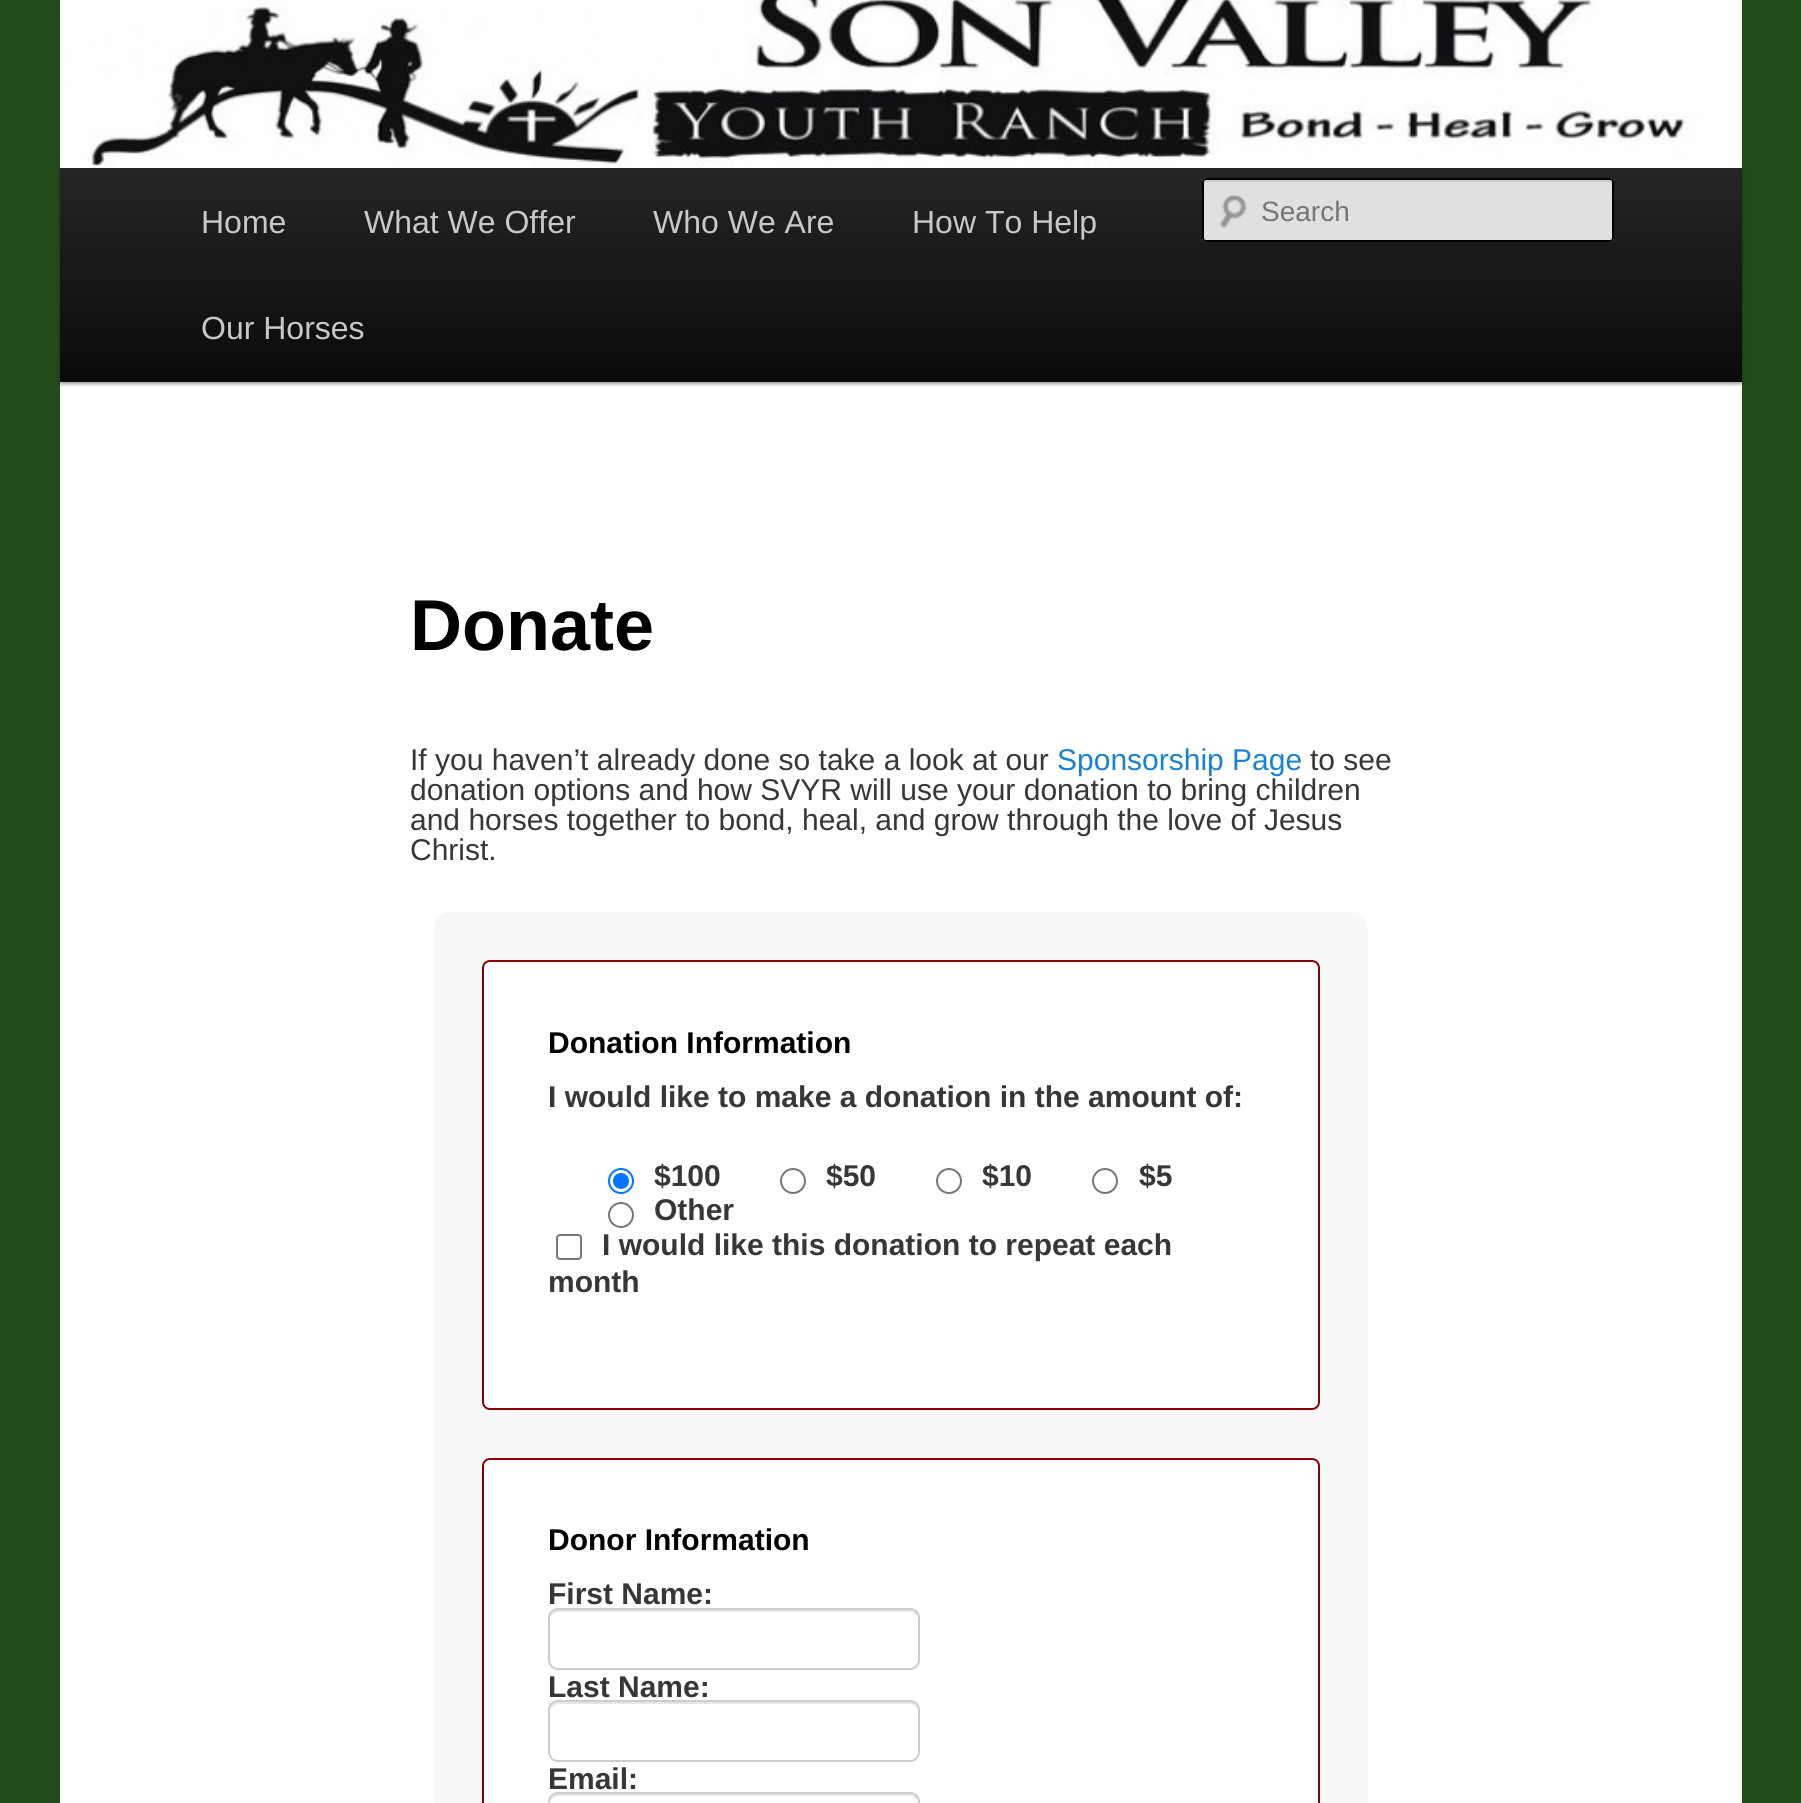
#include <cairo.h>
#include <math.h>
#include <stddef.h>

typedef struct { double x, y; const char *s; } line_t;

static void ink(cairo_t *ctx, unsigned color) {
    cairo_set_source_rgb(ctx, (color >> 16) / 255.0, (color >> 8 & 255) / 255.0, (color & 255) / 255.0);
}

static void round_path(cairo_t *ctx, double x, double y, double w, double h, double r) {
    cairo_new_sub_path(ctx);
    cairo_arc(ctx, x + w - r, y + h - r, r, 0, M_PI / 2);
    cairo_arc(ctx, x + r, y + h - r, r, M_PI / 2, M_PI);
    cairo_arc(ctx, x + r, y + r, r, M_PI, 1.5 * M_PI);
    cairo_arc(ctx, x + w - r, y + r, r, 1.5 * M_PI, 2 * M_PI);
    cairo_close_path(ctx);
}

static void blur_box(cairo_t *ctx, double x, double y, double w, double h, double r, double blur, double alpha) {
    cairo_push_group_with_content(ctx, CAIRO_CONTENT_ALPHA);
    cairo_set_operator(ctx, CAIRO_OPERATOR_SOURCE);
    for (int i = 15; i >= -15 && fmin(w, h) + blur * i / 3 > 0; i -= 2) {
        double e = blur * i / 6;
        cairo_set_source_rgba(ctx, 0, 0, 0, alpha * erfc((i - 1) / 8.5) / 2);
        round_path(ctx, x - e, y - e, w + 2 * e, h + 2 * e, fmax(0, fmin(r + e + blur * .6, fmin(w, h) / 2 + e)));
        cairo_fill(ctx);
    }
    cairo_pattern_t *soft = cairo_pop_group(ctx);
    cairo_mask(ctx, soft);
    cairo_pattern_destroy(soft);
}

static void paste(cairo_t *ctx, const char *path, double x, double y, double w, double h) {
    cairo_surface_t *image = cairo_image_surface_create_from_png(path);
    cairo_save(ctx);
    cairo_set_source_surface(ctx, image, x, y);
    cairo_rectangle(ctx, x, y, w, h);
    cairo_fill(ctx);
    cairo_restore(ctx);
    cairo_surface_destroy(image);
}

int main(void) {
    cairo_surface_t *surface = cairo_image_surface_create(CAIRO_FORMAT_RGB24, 1801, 1803);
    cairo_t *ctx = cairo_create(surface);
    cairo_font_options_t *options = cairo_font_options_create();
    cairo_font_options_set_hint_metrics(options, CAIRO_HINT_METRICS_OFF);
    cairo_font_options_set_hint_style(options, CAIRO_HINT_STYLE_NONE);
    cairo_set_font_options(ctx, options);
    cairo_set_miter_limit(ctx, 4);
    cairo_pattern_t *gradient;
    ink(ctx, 0x214C17);
    cairo_paint(ctx);
    ink(ctx, 0xFFFFFF);
    cairo_rectangle(ctx, 60, 382, 1682, 1421);
    cairo_fill(ctx);
    ink(ctx, 0x000000);
    blur_box(ctx, 60, 170, 1682, 214, 0, 2, 0.4);
    paste(ctx, "media/1.png", 60, 0, 1682, 168);
    gradient = cairo_pattern_create_linear(901, 168, 901, 382);
    cairo_pattern_add_color_stop_rgba(gradient, 0, 0.145, 0.145, 0.145, 1);
    cairo_pattern_add_color_stop_rgba(gradient, 1, 0.039, 0.039, 0.039, 1);
    cairo_set_source(ctx, gradient);
    cairo_pattern_destroy(gradient);
    cairo_rectangle(ctx, 60, 168, 1682, 214);
    cairo_fill(ctx);
    cairo_select_font_face(ctx, "Liberation Sans", CAIRO_FONT_SLANT_NORMAL, CAIRO_FONT_WEIGHT_NORMAL);
    cairo_set_font_size(ctx, 32);
    ink(ctx, 0xC8C8C8);
    {
        static const line_t items[] = {
            {201, 233, "Home"},
            {364, 233, "What We Offer"},
            {653, 233, "Who We Are"},
            {912, 233, "How To Help"},
            {201, 339, "Our Horses"},
        };
        for (size_t i = 0; i < sizeof items / sizeof *items; i++) {
            cairo_move_to(ctx, items[i].x, items[i].y);
            cairo_show_text(ctx, items[i].s);
        }
    }
    ink(ctx, 0xE0E0E0);
    round_path(ctx, 1202, 178, 412, 64, 4);
    cairo_fill(ctx);
    paste(ctx, "media/2.png", 1219, 194, 28, 35);
    ink(ctx, 0xCACACA);
    cairo_new_path(ctx);
    cairo_move_to(ctx, 1206, 182);
    cairo_line_to(ctx, 1610, 182);
    cairo_curve_to(ctx, 1611, 182, 1612, 183, 1612, 184);
    cairo_curve_to(ctx, 1612, 182, 1612, 180, 1610, 180);
    cairo_line_to(ctx, 1206, 180);
    cairo_line_to(ctx, 1204, 181);
    cairo_line_to(ctx, 1204, 184);
    cairo_curve_to(ctx, 1204, 183, 1205, 182, 1206, 182);
    cairo_close_path(ctx);
    cairo_fill(ctx);
    round_path(ctx, 1203, 179, 410, 62, 3);
    ink(ctx, 0x000000);
    cairo_stroke(ctx);
    cairo_set_font_size(ctx, 28);
    ink(ctx, 0x757575);
    cairo_move_to(ctx, 1261, 221);
    cairo_show_text(ctx, "Search");
    cairo_select_font_face(ctx, "Liberation Sans", CAIRO_FONT_SLANT_NORMAL, CAIRO_FONT_WEIGHT_BOLD);
    cairo_set_font_size(ctx, 72);
    ink(ctx, 0x000000);
    cairo_move_to(ctx, 410, 650);
    cairo_show_text(ctx, "Donate");
    cairo_select_font_face(ctx, "Liberation Sans", CAIRO_FONT_SLANT_NORMAL, CAIRO_FONT_WEIGHT_NORMAL);
    cairo_set_font_size(ctx, 30);
    ink(ctx, 0x373737);
    cairo_move_to(ctx, 410, 770);
    cairo_show_text(ctx, "If you haven’t already done so take a look at our");
    ink(ctx, 0x1982D1);
    cairo_move_to(ctx, 1057, 770);
    cairo_show_text(ctx, "Sponsorship Page");
    ink(ctx, 0x373737);
    {
        static const line_t items[] = {
            {1310, 770, "to see"},
            {410, 800, "donation options and how SVYR will use your donation to bring children"},
            {410, 830, "and horses together to bond, heal, and grow through the love of Jesus"},
            {410, 860, "Christ."},
        };
        for (size_t i = 0; i < sizeof items / sizeof *items; i++) {
            cairo_move_to(ctx, items[i].x, items[i].y);
            cairo_show_text(ctx, items[i].s);
        }
    }
    ink(ctx, 0xF8F8F8);
    round_path(ctx, 434, 912, 934, 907, 16);
    cairo_fill(ctx);
    ink(ctx, 0xFFFFFF);
    round_path(ctx, 483, 961, 836, 448, 7);
    cairo_fill_preserve(ctx);
    ink(ctx, 0x8B0000);
    cairo_stroke(ctx);
    cairo_select_font_face(ctx, "Liberation Sans", CAIRO_FONT_SLANT_NORMAL, CAIRO_FONT_WEIGHT_BOLD);
    ink(ctx, 0x000000);
    cairo_move_to(ctx, 548, 1053);
    cairo_show_text(ctx, "Donation Information");
    ink(ctx, 0x373737);
    cairo_move_to(ctx, 548, 1107);
    cairo_show_text(ctx, "I would like to make a donation in the amount of:");
    cairo_new_path(ctx);
    cairo_arc(ctx, 621, 1181, 12, 0, 2 * M_PI);
    ink(ctx, 0x0075FF);
    cairo_stroke(ctx);
    cairo_arc(ctx, 621, 1181, 8, 0, 2 * M_PI);
    cairo_fill(ctx);
    ink(ctx, 0x373737);
    cairo_move_to(ctx, 654, 1186);
    cairo_show_text(ctx, "$100");
    cairo_new_path(ctx);
    cairo_arc(ctx, 793, 1181, 12, 0, 2 * M_PI);
    ink(ctx, 0x767676);
    cairo_stroke(ctx);
    ink(ctx, 0x373737);
    cairo_move_to(ctx, 826, 1186);
    cairo_show_text(ctx, "$50");
    cairo_new_path(ctx);
    cairo_arc(ctx, 949, 1181, 12, 0, 2 * M_PI);
    ink(ctx, 0x767676);
    cairo_stroke(ctx);
    ink(ctx, 0x373737);
    cairo_move_to(ctx, 982, 1186);
    cairo_show_text(ctx, "$10");
    cairo_new_path(ctx);
    cairo_arc(ctx, 1105, 1181, 12, 0, 2 * M_PI);
    ink(ctx, 0x767676);
    cairo_stroke(ctx);
    ink(ctx, 0x373737);
    cairo_move_to(ctx, 1139, 1186);
    cairo_show_text(ctx, "$5");
    cairo_new_path(ctx);
    cairo_arc(ctx, 621, 1215, 12, 0, 2 * M_PI);
    ink(ctx, 0x767676);
    cairo_stroke(ctx);
    ink(ctx, 0x373737);
    cairo_move_to(ctx, 654, 1220);
    cairo_show_text(ctx, "Other");
    round_path(ctx, 557, 1235, 24, 24, 3);
    ink(ctx, 0x767676);
    cairo_stroke(ctx);
    ink(ctx, 0x373737);
    cairo_move_to(ctx, 602, 1255);
    cairo_show_text(ctx, "I would like this donation to repeat each");
    cairo_move_to(ctx, 548, 1292);
    cairo_show_text(ctx, "month");
    ink(ctx, 0xFFFFFF);
    round_path(ctx, 483, 1459, 836, 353, 7);
    cairo_fill_preserve(ctx);
    ink(ctx, 0x8B0000);
    cairo_stroke(ctx);
    ink(ctx, 0x000000);
    cairo_move_to(ctx, 548, 1550);
    cairo_show_text(ctx, "Donor Information");
    ink(ctx, 0x373737);
    cairo_move_to(ctx, 548, 1604);
    cairo_show_text(ctx, "First Name:");
    ink(ctx, 0xE6E6E6);
    cairo_new_path(ctx);
    cairo_move_to(ctx, 558, 1612);
    cairo_line_to(ctx, 910, 1612);
    cairo_curve_to(ctx, 914, 1612, 918, 1616, 918, 1620);
    cairo_curve_to(ctx, 918, 1615, 916, 1610, 910, 1610);
    cairo_line_to(ctx, 556, 1610);
    cairo_curve_to(ctx, 551, 1611, 550, 1616, 550, 1620);
    cairo_curve_to(ctx, 550, 1616, 554, 1612, 558, 1612);
    cairo_close_path(ctx);
    cairo_fill(ctx);
    round_path(ctx, 549, 1609, 370, 60, 9);
    ink(ctx, 0xCCCCCC);
    cairo_stroke(ctx);
    ink(ctx, 0x373737);
    cairo_move_to(ctx, 548, 1697);
    cairo_show_text(ctx, "Last Name:");
    ink(ctx, 0xE6E6E6);
    cairo_new_path(ctx);
    cairo_move_to(ctx, 558, 1704);
    cairo_line_to(ctx, 910, 1704);
    cairo_curve_to(ctx, 914, 1704, 918, 1708, 918, 1712);
    cairo_curve_to(ctx, 918, 1707, 916, 1702, 910, 1702);
    cairo_line_to(ctx, 556, 1702);
    cairo_curve_to(ctx, 551, 1703, 550, 1708, 550, 1712);
    cairo_curve_to(ctx, 550, 1708, 554, 1704, 558, 1704);
    cairo_close_path(ctx);
    cairo_fill(ctx);
    round_path(ctx, 549, 1701, 370, 60, 9);
    ink(ctx, 0xCCCCCC);
    cairo_stroke(ctx);
    ink(ctx, 0x373737);
    cairo_move_to(ctx, 548, 1789);
    cairo_show_text(ctx, "Email:");
    ink(ctx, 0xE6E6E6);
    cairo_new_path(ctx);
    cairo_move_to(ctx, 558, 1796);
    cairo_line_to(ctx, 910, 1796);
    cairo_curve_to(ctx, 914, 1796, 918, 1800, 918, 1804);
    cairo_curve_to(ctx, 918, 1799, 916, 1794, 910, 1794);
    cairo_line_to(ctx, 556, 1794);
    cairo_curve_to(ctx, 551, 1795, 550, 1800, 550, 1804);
    cairo_curve_to(ctx, 550, 1800, 554, 1796, 558, 1796);
    cairo_close_path(ctx);
    cairo_fill(ctx);
    round_path(ctx, 549, 1793, 370, 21, 9);
    ink(ctx, 0xCCCCCC);
    cairo_stroke(ctx);
    cairo_surface_write_to_png(surface, "image.png");
    cairo_font_options_destroy(options);
    cairo_destroy(ctx);
    cairo_surface_destroy(surface);
    return 0;
}
